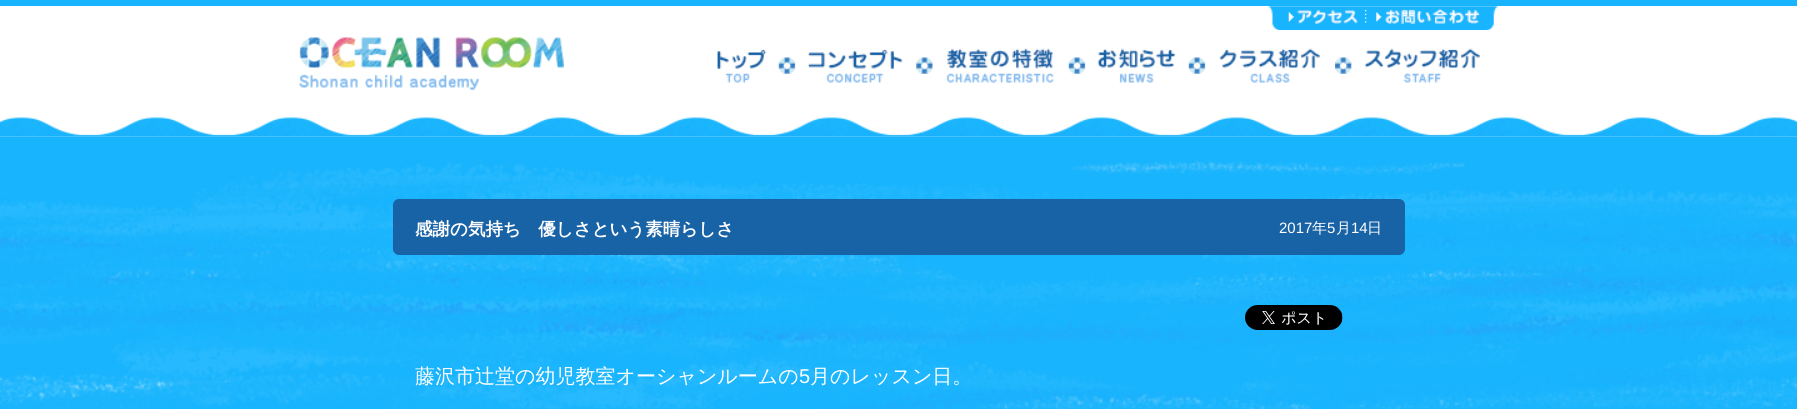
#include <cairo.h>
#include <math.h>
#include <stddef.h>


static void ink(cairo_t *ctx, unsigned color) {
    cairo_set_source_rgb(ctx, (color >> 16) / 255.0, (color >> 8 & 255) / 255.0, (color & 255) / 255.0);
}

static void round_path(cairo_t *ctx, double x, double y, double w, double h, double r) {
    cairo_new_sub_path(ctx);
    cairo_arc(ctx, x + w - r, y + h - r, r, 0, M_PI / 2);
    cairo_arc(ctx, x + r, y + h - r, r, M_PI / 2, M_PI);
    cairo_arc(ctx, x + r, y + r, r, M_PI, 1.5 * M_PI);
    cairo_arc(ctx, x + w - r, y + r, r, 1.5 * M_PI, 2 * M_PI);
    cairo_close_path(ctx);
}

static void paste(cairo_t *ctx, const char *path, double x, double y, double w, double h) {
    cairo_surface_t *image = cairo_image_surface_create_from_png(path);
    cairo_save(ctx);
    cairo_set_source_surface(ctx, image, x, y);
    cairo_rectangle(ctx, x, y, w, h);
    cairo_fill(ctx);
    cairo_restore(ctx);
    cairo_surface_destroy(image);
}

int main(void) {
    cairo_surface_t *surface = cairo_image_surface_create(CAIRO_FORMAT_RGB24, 1797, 409);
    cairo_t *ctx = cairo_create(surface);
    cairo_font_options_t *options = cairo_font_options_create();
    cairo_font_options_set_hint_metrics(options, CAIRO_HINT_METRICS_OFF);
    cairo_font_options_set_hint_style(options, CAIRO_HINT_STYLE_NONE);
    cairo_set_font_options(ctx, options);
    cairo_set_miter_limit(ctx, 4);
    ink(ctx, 0xFFFFFF);
    cairo_paint(ctx);
    ink(ctx, 0x18B4FD);
    cairo_rectangle(ctx, 0, 0, 1797, 6);
    cairo_fill(ctx);
    paste(ctx, "media/1.png", 0, 117, 1797, 20);
    paste(ctx, "media/2.png", 1267, 6, 98, 24);
    paste(ctx, "media/3.png", 1365, 6, 134, 24);
    paste(ctx, "media/4.png", 298, 37, 266, 53);
    paste(ctx, "media/5.png", 717, 49, 50, 34);
    paste(ctx, "media/6.png", 778, 49, 125, 34);
    paste(ctx, "media/7.png", 916, 48, 138, 35);
    paste(ctx, "media/8.png", 1068, 48, 108, 35);
    paste(ctx, "media/9.png", 1188, 48, 133, 35);
    paste(ctx, "media/10.png", 1335, 48, 145, 35);
    paste(ctx, "media/11.png", 0, 136, 1797, 273);
    ink(ctx, 0x1862A6);
    round_path(ctx, 393, 199, 1012, 56, 6);
    cairo_fill(ctx);
    cairo_select_font_face(ctx, "WenQuanYi Zen Hei", CAIRO_FONT_SLANT_NORMAL, CAIRO_FONT_WEIGHT_BOLD);
    cairo_set_font_size(ctx, 17.5);
    ink(ctx, 0xFFFFFF);
    cairo_move_to(ctx, 415, 235);
    cairo_show_text(ctx, "感謝の気持ち　優しさという素晴らしさ");
    cairo_select_font_face(ctx, "Liberation Sans", CAIRO_FONT_SLANT_NORMAL, CAIRO_FONT_WEIGHT_NORMAL);
    cairo_set_font_size(ctx, 15);
    cairo_move_to(ctx, 1279, 233);
    cairo_show_text(ctx, "2017");
    cairo_select_font_face(ctx, "WenQuanYi Zen Hei Medium", CAIRO_FONT_SLANT_NORMAL, CAIRO_FONT_WEIGHT_NORMAL);
    cairo_move_to(ctx, 1312, 233);
    cairo_show_text(ctx, "年");
    cairo_select_font_face(ctx, "Liberation Sans", CAIRO_FONT_SLANT_NORMAL, CAIRO_FONT_WEIGHT_NORMAL);
    cairo_move_to(ctx, 1327, 233);
    cairo_show_text(ctx, "5");
    cairo_select_font_face(ctx, "WenQuanYi Zen Hei Medium", CAIRO_FONT_SLANT_NORMAL, CAIRO_FONT_WEIGHT_NORMAL);
    cairo_move_to(ctx, 1336, 233);
    cairo_show_text(ctx, "月");
    cairo_select_font_face(ctx, "Liberation Sans", CAIRO_FONT_SLANT_NORMAL, CAIRO_FONT_WEIGHT_NORMAL);
    cairo_move_to(ctx, 1351, 233);
    cairo_show_text(ctx, "14");
    cairo_select_font_face(ctx, "WenQuanYi Zen Hei Medium", CAIRO_FONT_SLANT_NORMAL, CAIRO_FONT_WEIGHT_NORMAL);
    cairo_move_to(ctx, 1367, 233);
    cairo_show_text(ctx, "日");
    paste(ctx, "media/12.png", 1245, 305, 98, 25);
    cairo_set_font_size(ctx, 20);
    cairo_move_to(ctx, 415, 383);
    cairo_show_text(ctx, "藤沢市辻堂の幼児教室オーシャンルームの");
    cairo_select_font_face(ctx, "Liberation Sans", CAIRO_FONT_SLANT_NORMAL, CAIRO_FONT_WEIGHT_NORMAL);
    cairo_move_to(ctx, 799, 383);
    cairo_show_text(ctx, "5");
    cairo_select_font_face(ctx, "WenQuanYi Zen Hei Medium", CAIRO_FONT_SLANT_NORMAL, CAIRO_FONT_WEIGHT_NORMAL);
    cairo_move_to(ctx, 810, 383);
    cairo_show_text(ctx, "月のレッスン日。");
    cairo_surface_write_to_png(surface, "image.png");
    cairo_font_options_destroy(options);
    cairo_destroy(ctx);
    cairo_surface_destroy(surface);
    return 0;
}
